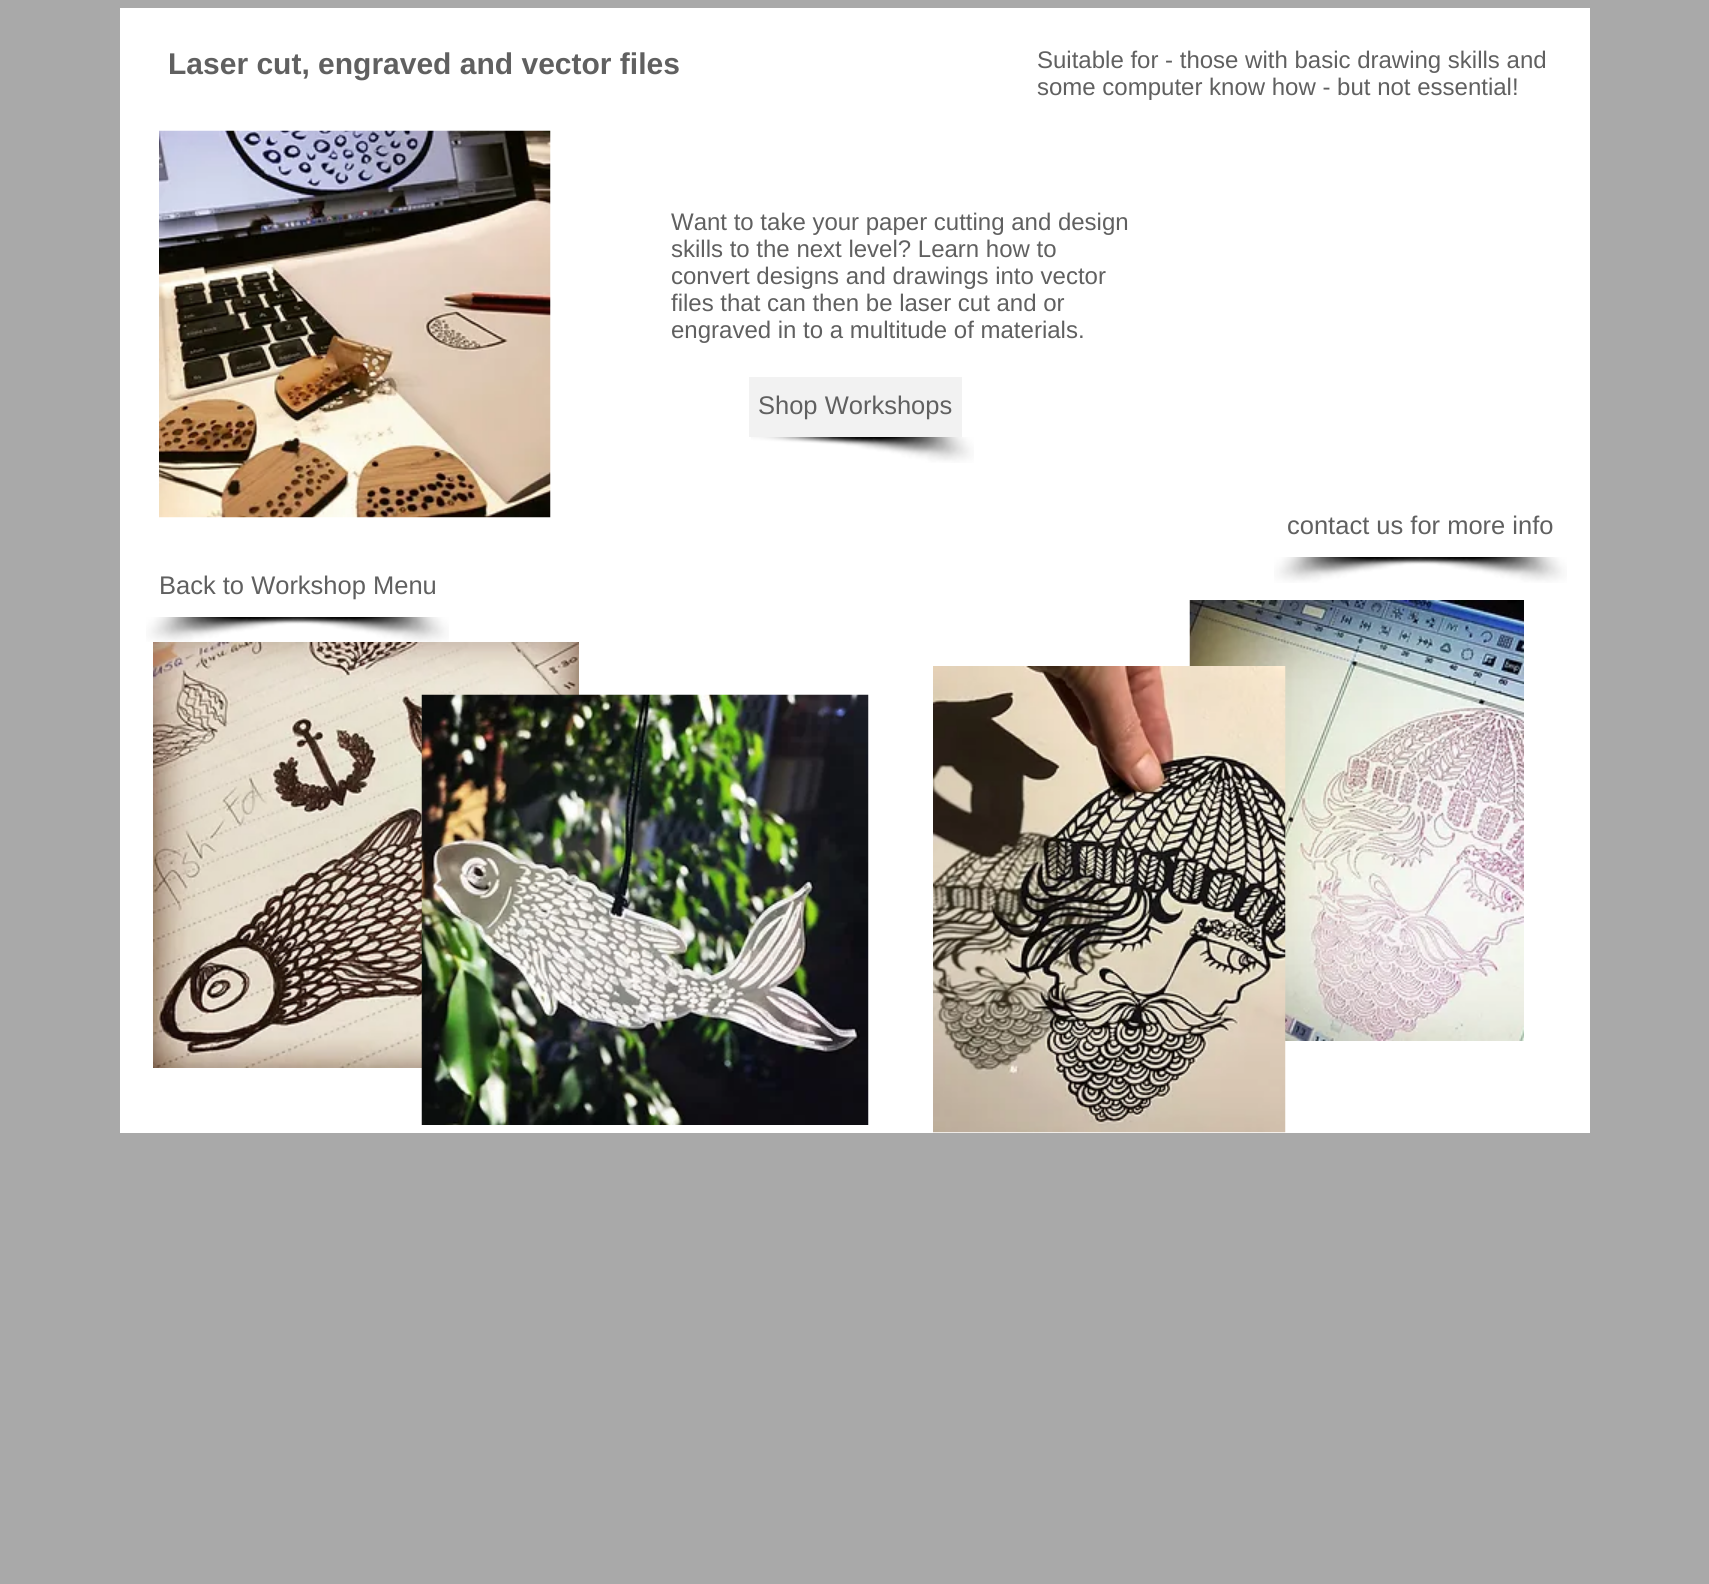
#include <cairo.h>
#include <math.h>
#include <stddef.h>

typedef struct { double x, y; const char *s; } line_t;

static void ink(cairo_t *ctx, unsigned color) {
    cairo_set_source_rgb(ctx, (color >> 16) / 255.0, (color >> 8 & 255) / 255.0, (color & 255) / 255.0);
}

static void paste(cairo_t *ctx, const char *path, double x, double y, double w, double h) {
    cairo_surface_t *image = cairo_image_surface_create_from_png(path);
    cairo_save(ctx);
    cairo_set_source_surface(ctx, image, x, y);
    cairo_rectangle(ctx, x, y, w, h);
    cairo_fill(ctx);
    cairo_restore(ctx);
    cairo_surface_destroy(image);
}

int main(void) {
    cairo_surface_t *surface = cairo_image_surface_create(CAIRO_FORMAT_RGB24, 1709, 1584);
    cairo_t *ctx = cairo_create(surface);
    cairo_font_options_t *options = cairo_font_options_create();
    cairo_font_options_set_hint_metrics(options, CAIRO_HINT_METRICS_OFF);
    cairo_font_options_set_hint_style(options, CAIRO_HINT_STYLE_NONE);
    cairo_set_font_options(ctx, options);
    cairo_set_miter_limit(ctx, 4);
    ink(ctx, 0xA9A9A9);
    cairo_paint(ctx);
    ink(ctx, 0xFFFFFF);
    cairo_rectangle(ctx, 120, 8, 1470, 1125);
    cairo_fill(ctx);
    cairo_select_font_face(ctx, "Liberation Sans", CAIRO_FONT_SLANT_NORMAL, CAIRO_FONT_WEIGHT_BOLD);
    cairo_set_font_size(ctx, 30);
    ink(ctx, 0x606060);
    cairo_move_to(ctx, 168, 74);
    cairo_show_text(ctx, "Laser cut, engraved and vector files");
    cairo_select_font_face(ctx, "Liberation Sans", CAIRO_FONT_SLANT_NORMAL, CAIRO_FONT_WEIGHT_NORMAL);
    cairo_set_font_size(ctx, 24);
    cairo_move_to(ctx, 1037, 68);
    cairo_show_text(ctx, "Suitable for - those with basic drawing skills and");
    cairo_move_to(ctx, 1037, 95);
    cairo_show_text(ctx, "some computer know how - but not essential!");
    paste(ctx, "media/1.png", 159, 130, 392, 388);
    {
        static const line_t items[] = {
            {671, 230, "Want to take your paper cutting and design"},
            {671, 257, "skills to the next level? Learn how to"},
            {671, 284, "convert designs and drawings into vector"},
            {671, 311, "files that can then be laser cut and or"},
            {671, 338, "engraved in to a multitude of materials."},
        };
        for (size_t i = 0; i < sizeof items / sizeof *items; i++) {
            cairo_move_to(ctx, items[i].x, items[i].y);
            cairo_show_text(ctx, items[i].s);
        }
    }
    ink(ctx, 0xF2F2F2);
    cairo_rectangle(ctx, 749, 377, 213, 60);
    cairo_fill(ctx);
    cairo_set_font_size(ctx, 25.5);
    ink(ctx, 0x606060);
    cairo_move_to(ctx, 758, 414);
    cairo_show_text(ctx, "Shop Workshops");
    paste(ctx, "media/2.png", 751, 437, 223, 26);
    cairo_move_to(ctx, 1287, 534);
    cairo_show_text(ctx, "contact us for more info");
    paste(ctx, "media/3.png", 1274, 557, 223, 26);
    paste(ctx, "media/4.png", 1360, 557, 207, 26);
    cairo_move_to(ctx, 159, 594);
    cairo_show_text(ctx, "Back to Workshop Menu");
    paste(ctx, "media/5.png", 146, 617, 223, 25);
    paste(ctx, "media/6.png", 244, 617, 205, 25);
    paste(ctx, "media/7.png", 153, 642, 426, 426);
    paste(ctx, "media/8.png", 421, 694, 448, 431);
    paste(ctx, "media/10.png", 1189, 600, 335, 441);
    paste(ctx, "media/9.png", 933, 666, 353, 467);
    cairo_surface_write_to_png(surface, "image.png");
    cairo_font_options_destroy(options);
    cairo_destroy(ctx);
    cairo_surface_destroy(surface);
    return 0;
}
